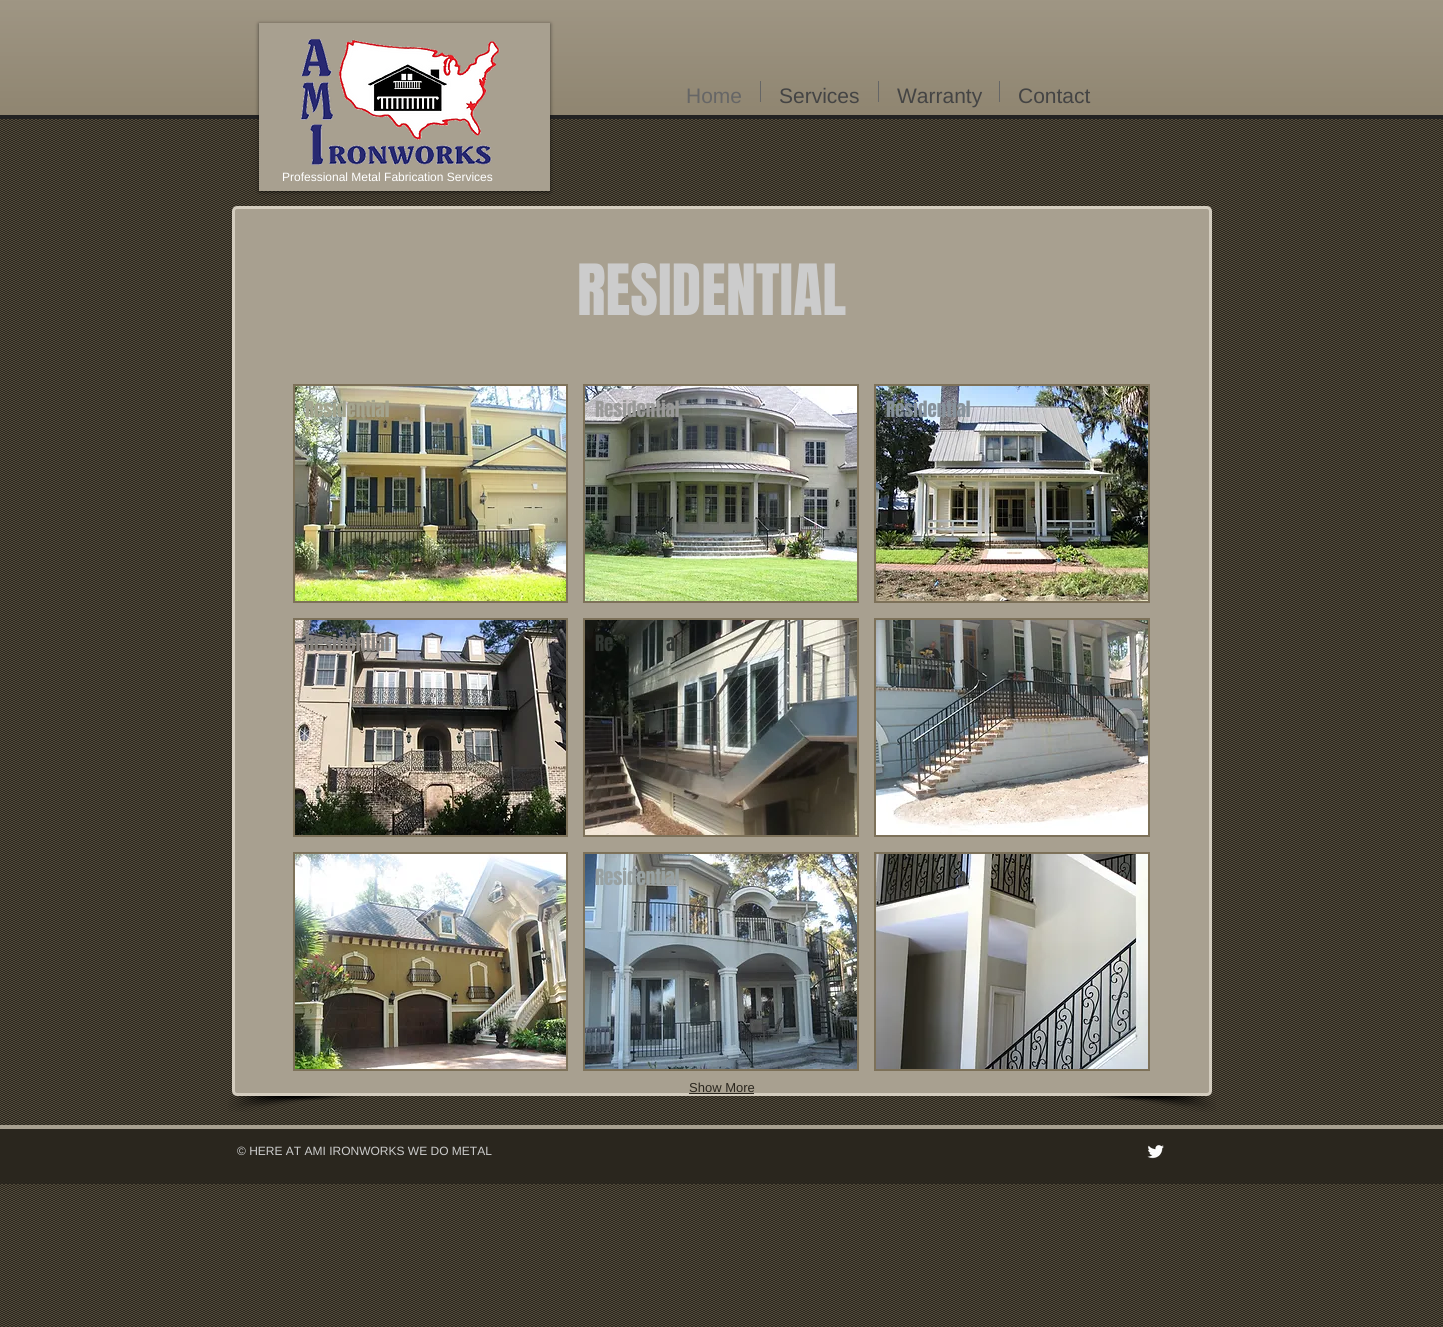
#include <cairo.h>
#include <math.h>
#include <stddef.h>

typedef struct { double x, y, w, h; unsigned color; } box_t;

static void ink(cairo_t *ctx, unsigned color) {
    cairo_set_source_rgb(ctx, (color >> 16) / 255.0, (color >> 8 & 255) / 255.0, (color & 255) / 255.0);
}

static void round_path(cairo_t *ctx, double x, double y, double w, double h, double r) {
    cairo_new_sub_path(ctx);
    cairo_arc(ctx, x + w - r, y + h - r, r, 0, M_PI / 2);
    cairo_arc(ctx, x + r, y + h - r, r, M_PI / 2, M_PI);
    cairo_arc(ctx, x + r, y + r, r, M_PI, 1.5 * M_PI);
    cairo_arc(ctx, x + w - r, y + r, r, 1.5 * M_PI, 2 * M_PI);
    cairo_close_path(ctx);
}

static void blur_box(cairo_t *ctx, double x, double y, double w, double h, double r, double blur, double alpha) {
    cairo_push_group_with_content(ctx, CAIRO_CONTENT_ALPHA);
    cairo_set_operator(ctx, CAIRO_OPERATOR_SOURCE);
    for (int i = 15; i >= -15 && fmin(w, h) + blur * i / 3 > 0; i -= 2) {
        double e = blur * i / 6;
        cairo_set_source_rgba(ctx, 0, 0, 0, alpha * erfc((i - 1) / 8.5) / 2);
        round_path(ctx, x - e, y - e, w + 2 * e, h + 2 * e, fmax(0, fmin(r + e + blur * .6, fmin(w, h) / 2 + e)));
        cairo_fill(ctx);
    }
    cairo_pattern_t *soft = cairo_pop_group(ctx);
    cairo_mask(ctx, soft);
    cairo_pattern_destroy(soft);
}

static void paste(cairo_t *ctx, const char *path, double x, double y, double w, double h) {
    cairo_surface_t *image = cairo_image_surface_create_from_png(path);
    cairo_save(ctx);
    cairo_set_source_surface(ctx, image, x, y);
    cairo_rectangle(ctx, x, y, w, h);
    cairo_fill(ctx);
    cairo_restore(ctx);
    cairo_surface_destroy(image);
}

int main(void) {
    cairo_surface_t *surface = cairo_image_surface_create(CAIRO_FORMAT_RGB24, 1443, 1327);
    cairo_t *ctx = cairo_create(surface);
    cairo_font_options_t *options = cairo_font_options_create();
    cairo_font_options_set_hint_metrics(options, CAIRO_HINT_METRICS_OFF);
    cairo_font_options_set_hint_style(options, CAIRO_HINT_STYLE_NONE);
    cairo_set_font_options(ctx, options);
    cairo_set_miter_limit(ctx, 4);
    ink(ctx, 0x534B3B);
    cairo_paint(ctx);
    ink(ctx, 0x7D7159);
    cairo_rectangle(ctx, 0, 0, 1443, 115);
    cairo_fill(ctx);
    ink(ctx, 0x222222);
    cairo_rectangle(ctx, 0, 115, 1443, 4);
    cairo_fill(ctx);
    paste(ctx, "media/1.png", 0, 0, 1443, 115);
    cairo_select_font_face(ctx, "Liberation Sans", CAIRO_FONT_SLANT_NORMAL, CAIRO_FONT_WEIGHT_NORMAL);
    cairo_set_font_size(ctx, 21);
    ink(ctx, 0x666666);
    cairo_move_to(ctx, 686, 103);
    cairo_show_text(ctx, "Home");
    cairo_rectangle(ctx, 760, 81, 1, 21);
    cairo_fill(ctx);
    ink(ctx, 0x444444);
    cairo_move_to(ctx, 779, 103);
    cairo_show_text(ctx, "Services");
    ink(ctx, 0x666666);
    cairo_rectangle(ctx, 878, 81, 1, 21);
    cairo_fill(ctx);
    ink(ctx, 0x444444);
    cairo_move_to(ctx, 897, 103);
    cairo_show_text(ctx, "Warranty");
    ink(ctx, 0x666666);
    cairo_rectangle(ctx, 999, 81, 1, 21);
    cairo_fill(ctx);
    ink(ctx, 0x444444);
    cairo_move_to(ctx, 1018, 103);
    cairo_show_text(ctx, "Contact");
    paste(ctx, "media/15.png", 0, 119, 1443, 1208);
    ink(ctx, 0x000000);
    blur_box(ctx, 259, 24, 291, 168, 0, 2, 0.6);
    ink(ctx, 0xA8A090);
    cairo_rectangle(ctx, 259, 23, 291, 168);
    cairo_fill(ctx);
    paste(ctx, "media/2.png", 300, 39, 200, 126);
    cairo_set_font_size(ctx, 12);
    ink(ctx, 0xFFFFFF);
    cairo_move_to(ctx, 282, 181);
    cairo_show_text(ctx, "Professional Metal Fabrication Services");
    ink(ctx, 0xA8A090);
    round_path(ctx, 233.5, 207.5, 977, 887, 3.5);
    cairo_fill_preserve(ctx);
    ink(ctx, 0xD4CDBF);
    cairo_set_line_width(ctx, 3);
    cairo_stroke(ctx);
    paste(ctx, "media/3.png", 228, 1096, 135, 16);
    paste(ctx, "media/4.png", 1081, 1096, 135, 16);
    cairo_select_font_face(ctx, "Anton", CAIRO_FONT_SLANT_NORMAL, CAIRO_FONT_WEIGHT_NORMAL);
    cairo_set_font_size(ctx, 60);
    ink(ctx, 0xCCCCCC);
    cairo_move_to(ctx, 577, 315);
    cairo_show_text(ctx, "RESIDENTIAL");
    ink(ctx, 0x7D7159);
    cairo_rectangle(ctx, 293, 384, 275, 219);
    cairo_fill(ctx);
    paste(ctx, "media/5.png", 295, 386, 271, 215);
    cairo_set_font_size(ctx, 19);
    ink(ctx, 0xA4A48E);
    cairo_move_to(ctx, 305, 417);
    cairo_show_text(ctx, "Residential");
    cairo_select_font_face(ctx, "Liberation Sans", CAIRO_FONT_SLANT_NORMAL, CAIRO_FONT_WEIGHT_NORMAL);
    cairo_set_font_size(ctx, 13);
    ink(ctx, 0xA5B087);
    cairo_move_to(ctx, 305, 436);
    cairo_show_text(ctx, "1");
    ink(ctx, 0x7D7159);
    cairo_rectangle(ctx, 583, 384, 276, 219);
    cairo_fill(ctx);
    paste(ctx, "media/6.png", 585, 386, 272, 215);
    cairo_select_font_face(ctx, "Anton", CAIRO_FONT_SLANT_NORMAL, CAIRO_FONT_WEIGHT_NORMAL);
    cairo_set_font_size(ctx, 19);
    ink(ctx, 0x999998);
    cairo_move_to(ctx, 595, 417);
    cairo_show_text(ctx, "Residential");
    ink(ctx, 0x7D7159);
    cairo_rectangle(ctx, 874, 384, 276, 219);
    cairo_fill(ctx);
    paste(ctx, "media/7.png", 876, 386, 272, 215);
    ink(ctx, 0x87929B);
    cairo_move_to(ctx, 886, 417);
    cairo_show_text(ctx, "Residential");
    ink(ctx, 0x7D7159);
    cairo_rectangle(ctx, 293, 618, 275, 219);
    cairo_fill(ctx);
    paste(ctx, "media/8.png", 295, 620, 271, 215);
    ink(ctx, 0x87837F);
    cairo_move_to(ctx, 305, 651);
    cairo_show_text(ctx, "Residential");
    cairo_select_font_face(ctx, "Liberation Sans", CAIRO_FONT_SLANT_NORMAL, CAIRO_FONT_WEIGHT_NORMAL);
    cairo_set_font_size(ctx, 13);
    ink(ctx, 0x525456);
    cairo_move_to(ctx, 305, 670);
    cairo_show_text(ctx, "4");
    ink(ctx, 0x7D7159);
    cairo_rectangle(ctx, 583, 618, 276, 219);
    cairo_fill(ctx);
    paste(ctx, "media/9.png", 585, 620, 272, 215);
    cairo_select_font_face(ctx, "Anton", CAIRO_FONT_SLANT_NORMAL, CAIRO_FONT_WEIGHT_NORMAL);
    cairo_set_font_size(ctx, 19);
    ink(ctx, 0x2F3430);
    cairo_move_to(ctx, 595, 651);
    cairo_show_text(ctx, "Re");
    cairo_move_to(ctx, 666, 651);
    cairo_show_text(ctx, "a");
    ink(ctx, 0x7D7159);
    cairo_rectangle(ctx, 874, 618, 276, 219);
    cairo_fill(ctx);
    paste(ctx, "media/10.png", 876, 620, 272, 215);
    ink(ctx, 0x5B5E5B);
    cairo_move_to(ctx, 905, 651);
    cairo_show_text(ctx, "s");
    ink(ctx, 0x7D7159);
    cairo_rectangle(ctx, 293, 852, 275, 219);
    cairo_fill(ctx);
    paste(ctx, "media/11.png", 295, 854, 271, 215);
    cairo_rectangle(ctx, 583, 852, 276, 219);
    cairo_fill(ctx);
    paste(ctx, "media/12.png", 585, 854, 272, 215);
    ink(ctx, 0x98A1A2);
    cairo_move_to(ctx, 595, 885);
    cairo_show_text(ctx, "Residential");
    ink(ctx, 0x7D7159);
    cairo_rectangle(ctx, 874, 852, 276, 219);
    cairo_fill(ctx);
    paste(ctx, "media/13.png", 876, 854, 272, 215);
    ink(ctx, 0x444444);
    cairo_move_to(ctx, 957, 885);
    cairo_show_text(ctx, "a");
    cairo_select_font_face(ctx, "Liberation Sans", CAIRO_FONT_SLANT_NORMAL, CAIRO_FONT_WEIGHT_NORMAL);
    cairo_set_font_size(ctx, 13);
    ink(ctx, 0x2A261E);
    cairo_move_to(ctx, 689, 1092);
    cairo_show_text(ctx, "Show More");
    {
        static const box_t items[] = {
            {689, 1093, 65, 1, 0x2A261E},
            {0, 1129, 1443, 55, 0x2A261E},
            {0, 1125, 1443, 4, 0xA8A090},
        };
        for (size_t i = 0; i < sizeof items / sizeof *items; i++) {
            ink(ctx, items[i].color);
            cairo_rectangle(ctx, items[i].x, items[i].y, items[i].w, items[i].h);
            cairo_fill(ctx);
        }
    }
    cairo_set_font_size(ctx, 12);
    ink(ctx, 0xCCCCCC);
    cairo_move_to(ctx, 237, 1155);
    cairo_show_text(ctx, "© HERE AT AMI IRONWORKS WE DO METAL");
    paste(ctx, "media/14.png", 1147, 1145, 17, 14);
    cairo_surface_write_to_png(surface, "image.png");
    cairo_font_options_destroy(options);
    cairo_destroy(ctx);
    cairo_surface_destroy(surface);
    return 0;
}
